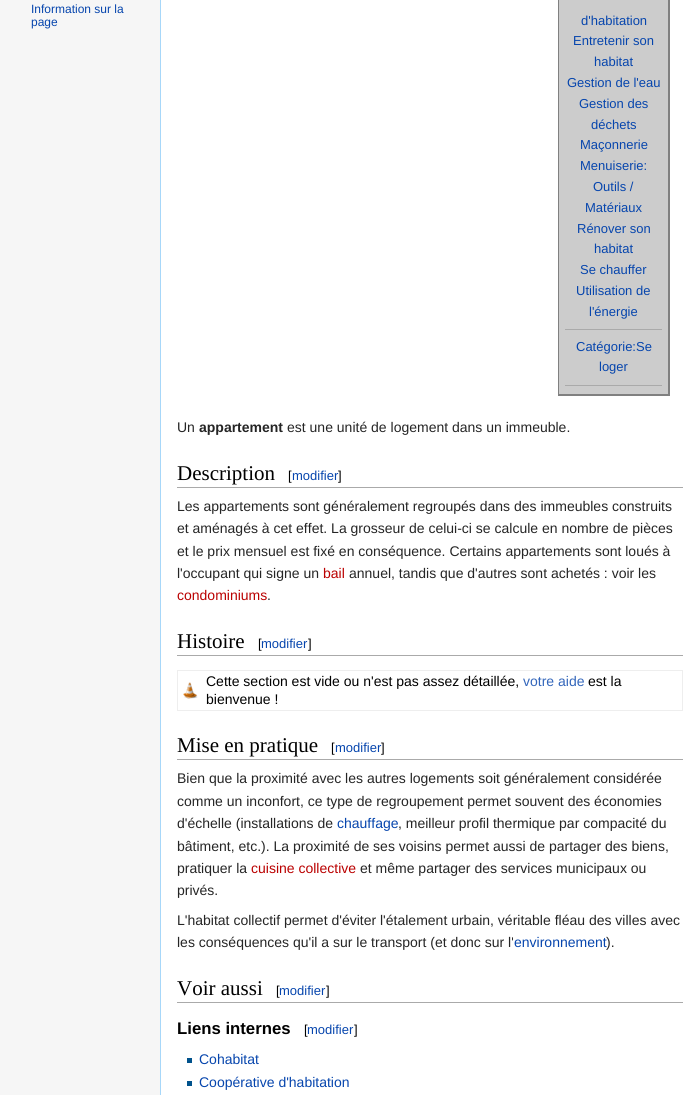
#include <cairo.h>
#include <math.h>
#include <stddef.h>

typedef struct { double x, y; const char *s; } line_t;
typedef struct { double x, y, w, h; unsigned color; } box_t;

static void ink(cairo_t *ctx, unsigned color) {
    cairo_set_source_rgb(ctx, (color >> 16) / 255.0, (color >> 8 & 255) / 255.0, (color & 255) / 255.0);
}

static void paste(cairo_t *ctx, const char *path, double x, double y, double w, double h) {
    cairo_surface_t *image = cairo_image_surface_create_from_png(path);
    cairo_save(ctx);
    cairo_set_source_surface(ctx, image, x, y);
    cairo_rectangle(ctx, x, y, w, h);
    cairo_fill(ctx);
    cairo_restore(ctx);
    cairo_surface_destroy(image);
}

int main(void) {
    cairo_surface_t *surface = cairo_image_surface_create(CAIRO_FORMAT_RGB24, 699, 1095);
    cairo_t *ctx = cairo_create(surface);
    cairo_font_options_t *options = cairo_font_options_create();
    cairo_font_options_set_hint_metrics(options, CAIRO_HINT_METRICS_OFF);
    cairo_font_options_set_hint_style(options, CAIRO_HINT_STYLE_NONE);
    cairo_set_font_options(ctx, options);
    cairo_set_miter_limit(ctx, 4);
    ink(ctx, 0xF6F6F6);
    cairo_paint(ctx);
    cairo_select_font_face(ctx, "Liberation Sans", CAIRO_FONT_SLANT_NORMAL, CAIRO_FONT_WEIGHT_NORMAL);
    cairo_set_font_size(ctx, 12);
    ink(ctx, 0x0645AD);
    cairo_move_to(ctx, 31, 13);
    cairo_show_text(ctx, "Information sur la");
    cairo_move_to(ctx, 31, 26);
    cairo_show_text(ctx, "page");
    {
        static const box_t items[] = {
            {161, 0, 538, 1095, 0xFFFFFF},
            {160, 0, 1, 1095, 0xA7D7F9},
            {559, 0, 109, 394, 0xCCCCCC},
            {668, 0, 2, 396, 0x808080},
            {558, 394, 112, 2, 0x808080},
            {558, 0, 1, 396, 0x808080},
        };
        for (size_t i = 0; i < sizeof items / sizeof *items; i++) {
            ink(ctx, items[i].color);
            cairo_rectangle(ctx, items[i].x, items[i].y, items[i].w, items[i].h);
            cairo_fill(ctx);
        }
    }
    cairo_set_font_size(ctx, 13);
    ink(ctx, 0x0645AD);
    {
        static const line_t items[] = {
            {581, 25, "d'habitation"},
            {573, 45, "Entretenir son"},
            {594, 66, "habitat"},
            {567, 87, "Gestion de l'eau"},
            {579, 108, "Gestion des"},
            {591, 129, "déchets"},
            {580, 149, "Maçonnerie"},
            {580, 170, "Menuiserie:"},
            {593, 191, "Outils /"},
            {585, 212, "Matériaux"},
            {577, 233, "Rénover son"},
            {594, 253, "habitat"},
            {580, 274, "Se chauffer"},
            {576, 295, "Utilisation de"},
            {589, 316, "l'énergie"},
        };
        for (size_t i = 0; i < sizeof items / sizeof *items; i++) {
            cairo_move_to(ctx, items[i].x, items[i].y);
            cairo_show_text(ctx, items[i].s);
        }
    }
    ink(ctx, 0xAAAAAA);
    cairo_rectangle(ctx, 565, 329, 97, 1);
    cairo_fill(ctx);
    ink(ctx, 0x0645AD);
    cairo_move_to(ctx, 576, 351);
    cairo_show_text(ctx, "Catégorie:Se");
    cairo_move_to(ctx, 599, 371);
    cairo_show_text(ctx, "loger");
    ink(ctx, 0xAAAAAA);
    cairo_rectangle(ctx, 565, 385, 97, 1);
    cairo_fill(ctx);
    cairo_set_font_size(ctx, 14);
    ink(ctx, 0x252525);
    cairo_move_to(ctx, 177, 432);
    cairo_show_text(ctx, "Un");
    cairo_select_font_face(ctx, "Liberation Sans", CAIRO_FONT_SLANT_NORMAL, CAIRO_FONT_WEIGHT_BOLD);
    cairo_move_to(ctx, 199, 432);
    cairo_show_text(ctx, "appartement");
    cairo_select_font_face(ctx, "Liberation Sans", CAIRO_FONT_SLANT_NORMAL, CAIRO_FONT_WEIGHT_NORMAL);
    cairo_move_to(ctx, 287, 432);
    cairo_show_text(ctx, "est une unité de logement dans un immeuble.");
    ink(ctx, 0xAAAAAA);
    cairo_rectangle(ctx, 177, 487, 506, 1);
    cairo_fill(ctx);
    cairo_select_font_face(ctx, "Liberation Serif", CAIRO_FONT_SLANT_NORMAL, CAIRO_FONT_WEIGHT_NORMAL);
    cairo_set_font_size(ctx, 21);
    ink(ctx, 0x000000);
    cairo_move_to(ctx, 177, 480);
    cairo_show_text(ctx, "Description");
    cairo_select_font_face(ctx, "Liberation Sans", CAIRO_FONT_SLANT_NORMAL, CAIRO_FONT_WEIGHT_NORMAL);
    cairo_set_font_size(ctx, 13);
    cairo_move_to(ctx, 288, 480);
    cairo_show_text(ctx, "[");
    ink(ctx, 0x0645AD);
    cairo_move_to(ctx, 292, 480);
    cairo_show_text(ctx, "modifier");
    ink(ctx, 0x000000);
    cairo_move_to(ctx, 338, 480);
    cairo_show_text(ctx, "]");
    cairo_set_font_size(ctx, 14);
    ink(ctx, 0x252525);
    {
        static const line_t items[] = {
            {177, 511, "Les appartements sont généralement regroupés dans des immeubles construits"},
            {177, 533, "et aménagés à cet effet. La grosseur de celui-ci se calcule en nombre de pièces"},
            {177, 556, "et le prix mensuel est fixé en conséquence. Certains appartements sont loués à"},
            {177, 578, "l'occupant qui signe un"},
        };
        for (size_t i = 0; i < sizeof items / sizeof *items; i++) {
            cairo_move_to(ctx, items[i].x, items[i].y);
            cairo_show_text(ctx, items[i].s);
        }
    }
    ink(ctx, 0xBA0000);
    cairo_move_to(ctx, 323, 578);
    cairo_show_text(ctx, "bail");
    ink(ctx, 0x252525);
    cairo_move_to(ctx, 349, 578);
    cairo_show_text(ctx, "annuel, tandis que d'autres sont achetés : voir les");
    ink(ctx, 0xBA0000);
    cairo_move_to(ctx, 177, 600);
    cairo_show_text(ctx, "condominiums");
    ink(ctx, 0x252525);
    cairo_move_to(ctx, 267, 600);
    cairo_show_text(ctx, ".");
    ink(ctx, 0xAAAAAA);
    cairo_rectangle(ctx, 177, 655, 506, 1);
    cairo_fill(ctx);
    cairo_select_font_face(ctx, "Liberation Serif", CAIRO_FONT_SLANT_NORMAL, CAIRO_FONT_WEIGHT_NORMAL);
    cairo_set_font_size(ctx, 21);
    ink(ctx, 0x000000);
    cairo_move_to(ctx, 177, 648);
    cairo_show_text(ctx, "Histoire");
    cairo_select_font_face(ctx, "Liberation Sans", CAIRO_FONT_SLANT_NORMAL, CAIRO_FONT_WEIGHT_NORMAL);
    cairo_set_font_size(ctx, 13);
    cairo_move_to(ctx, 258, 648);
    cairo_show_text(ctx, "[");
    ink(ctx, 0x0645AD);
    cairo_move_to(ctx, 261, 648);
    cairo_show_text(ctx, "modifier");
    ink(ctx, 0x000000);
    cairo_move_to(ctx, 308, 648);
    cairo_show_text(ctx, "]");
    cairo_rectangle(ctx, 177.5, 670.5, 505, 40);
    ink(ctx, 0xEEEEEE);
    cairo_set_line_width(ctx, 1);
    cairo_stroke(ctx);
    paste(ctx, "media/1.png", 183, 682, 15, 17);
    cairo_set_font_size(ctx, 14);
    ink(ctx, 0x000000);
    cairo_move_to(ctx, 206, 686);
    cairo_show_text(ctx, "Cette section est vide ou n'est pas assez détaillée,");
    ink(ctx, 0x3366BB);
    cairo_move_to(ctx, 523, 686);
    cairo_show_text(ctx, "votre aide");
    ink(ctx, 0x000000);
    cairo_move_to(ctx, 588, 686);
    cairo_show_text(ctx, "est la");
    cairo_move_to(ctx, 206, 704);
    cairo_show_text(ctx, "bienvenue !");
    ink(ctx, 0xAAAAAA);
    cairo_rectangle(ctx, 177, 759, 506, 1);
    cairo_fill(ctx);
    cairo_select_font_face(ctx, "Liberation Serif", CAIRO_FONT_SLANT_NORMAL, CAIRO_FONT_WEIGHT_NORMAL);
    cairo_set_font_size(ctx, 21);
    ink(ctx, 0x000000);
    cairo_move_to(ctx, 177, 752);
    cairo_show_text(ctx, "Mise en pratique");
    cairo_select_font_face(ctx, "Liberation Sans", CAIRO_FONT_SLANT_NORMAL, CAIRO_FONT_WEIGHT_NORMAL);
    cairo_set_font_size(ctx, 13);
    cairo_move_to(ctx, 331, 752);
    cairo_show_text(ctx, "[");
    ink(ctx, 0x0645AD);
    cairo_move_to(ctx, 335, 752);
    cairo_show_text(ctx, "modifier");
    ink(ctx, 0x000000);
    cairo_move_to(ctx, 381, 752);
    cairo_show_text(ctx, "]");
    cairo_set_font_size(ctx, 14);
    ink(ctx, 0x252525);
    {
        static const line_t items[] = {
            {177, 783, "Bien que la proximité avec les autres logements soit généralement considérée"},
            {177, 806, "comme un inconfort, ce type de regroupement permet souvent des économies"},
            {177, 828, "d'échelle (installations de"},
        };
        for (size_t i = 0; i < sizeof items / sizeof *items; i++) {
            cairo_move_to(ctx, items[i].x, items[i].y);
            cairo_show_text(ctx, items[i].s);
        }
    }
    ink(ctx, 0x0645AD);
    cairo_move_to(ctx, 337, 828);
    cairo_show_text(ctx, "chauffage");
    ink(ctx, 0x252525);
    {
        static const line_t items[] = {
            {398, 828, ", meilleur profil thermique par compacité du"},
            {177, 851, "bâtiment, etc.). La proximité de ses voisins permet aussi de partager des biens,"},
            {177, 873, "pratiquer la"},
        };
        for (size_t i = 0; i < sizeof items / sizeof *items; i++) {
            cairo_move_to(ctx, items[i].x, items[i].y);
            cairo_show_text(ctx, items[i].s);
        }
    }
    ink(ctx, 0xBA0000);
    cairo_move_to(ctx, 251, 873);
    cairo_show_text(ctx, "cuisine collective");
    ink(ctx, 0x252525);
    {
        static const line_t items[] = {
            {360, 873, "et même partager des services municipaux ou"},
            {177, 895, "privés."},
            {177, 925, "L'habitat collectif permet d'éviter l'étalement urbain, véritable fléau des villes avec"},
            {177, 947, "les conséquences qu'il a sur le transport (et donc sur l'"},
        };
        for (size_t i = 0; i < sizeof items / sizeof *items; i++) {
            cairo_move_to(ctx, items[i].x, items[i].y);
            cairo_show_text(ctx, items[i].s);
        }
    }
    ink(ctx, 0x0645AD);
    cairo_move_to(ctx, 514, 947);
    cairo_show_text(ctx, "environnement");
    ink(ctx, 0x252525);
    cairo_move_to(ctx, 606, 947);
    cairo_show_text(ctx, ").");
    ink(ctx, 0xAAAAAA);
    cairo_rectangle(ctx, 177, 1002, 506, 1);
    cairo_fill(ctx);
    cairo_select_font_face(ctx, "Liberation Serif", CAIRO_FONT_SLANT_NORMAL, CAIRO_FONT_WEIGHT_NORMAL);
    cairo_set_font_size(ctx, 21);
    ink(ctx, 0x000000);
    cairo_move_to(ctx, 177, 995);
    cairo_show_text(ctx, "Voir aussi");
    cairo_select_font_face(ctx, "Liberation Sans", CAIRO_FONT_SLANT_NORMAL, CAIRO_FONT_WEIGHT_NORMAL);
    cairo_set_font_size(ctx, 13);
    cairo_move_to(ctx, 276, 995);
    cairo_show_text(ctx, "[");
    ink(ctx, 0x0645AD);
    cairo_move_to(ctx, 279, 995);
    cairo_show_text(ctx, "modifier");
    ink(ctx, 0x000000);
    cairo_move_to(ctx, 326, 995);
    cairo_show_text(ctx, "]");
    cairo_select_font_face(ctx, "Liberation Sans", CAIRO_FONT_SLANT_NORMAL, CAIRO_FONT_WEIGHT_BOLD);
    cairo_set_font_size(ctx, 16.75);
    cairo_move_to(ctx, 177, 1034);
    cairo_show_text(ctx, "Liens internes");
    cairo_select_font_face(ctx, "Liberation Sans", CAIRO_FONT_SLANT_NORMAL, CAIRO_FONT_WEIGHT_NORMAL);
    cairo_set_font_size(ctx, 13);
    cairo_move_to(ctx, 304, 1034);
    cairo_show_text(ctx, "[");
    ink(ctx, 0x0645AD);
    cairo_move_to(ctx, 307, 1034);
    cairo_show_text(ctx, "modifier");
    ink(ctx, 0x000000);
    cairo_move_to(ctx, 354, 1034);
    cairo_show_text(ctx, "]");
    ink(ctx, 0x00528C);
    cairo_rectangle(ctx, 187, 1058, 5, 5);
    cairo_fill(ctx);
    cairo_set_font_size(ctx, 14);
    ink(ctx, 0x0645AD);
    cairo_move_to(ctx, 199, 1064);
    cairo_show_text(ctx, "Cohabitat");
    ink(ctx, 0x00528C);
    cairo_rectangle(ctx, 187, 1081, 5, 5);
    cairo_fill(ctx);
    ink(ctx, 0x0645AD);
    cairo_move_to(ctx, 199, 1087);
    cairo_show_text(ctx, "Coopérative d'habitation");
    cairo_surface_write_to_png(surface, "image.png");
    cairo_font_options_destroy(options);
    cairo_destroy(ctx);
    cairo_surface_destroy(surface);
    return 0;
}
